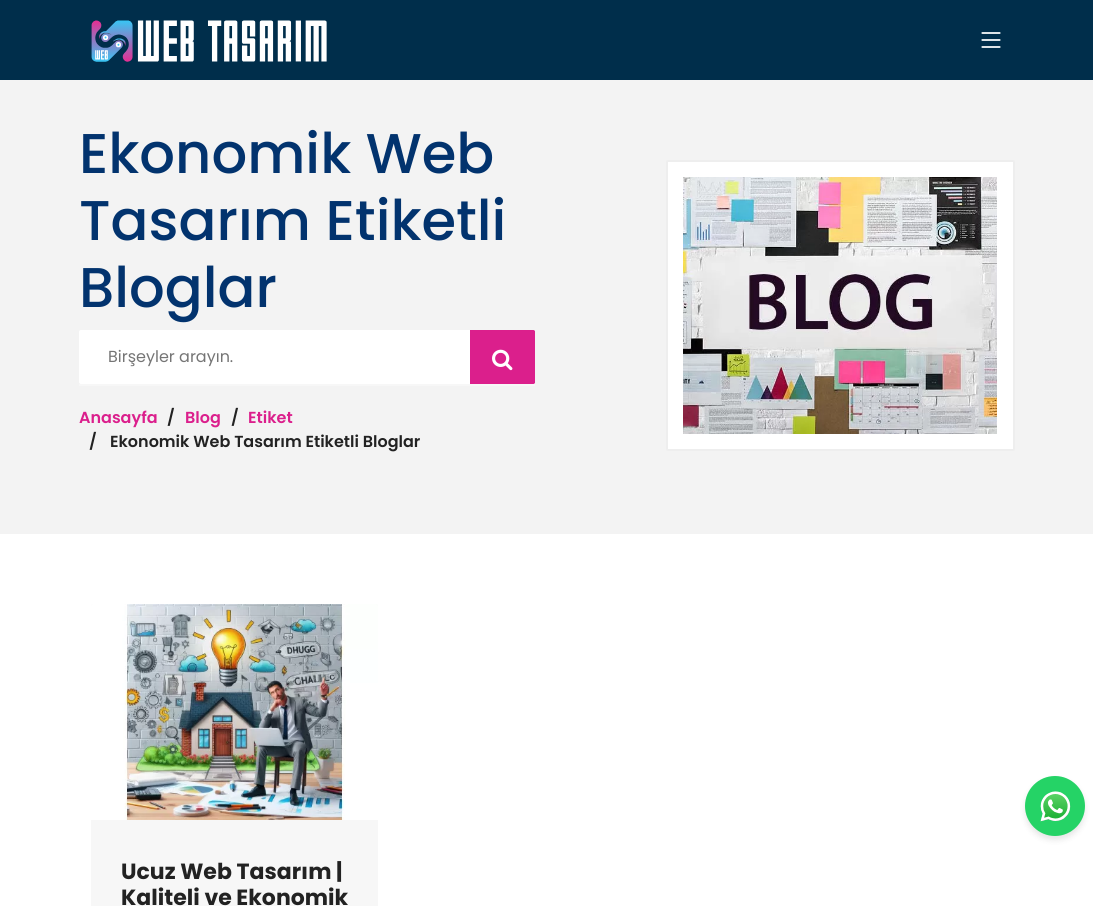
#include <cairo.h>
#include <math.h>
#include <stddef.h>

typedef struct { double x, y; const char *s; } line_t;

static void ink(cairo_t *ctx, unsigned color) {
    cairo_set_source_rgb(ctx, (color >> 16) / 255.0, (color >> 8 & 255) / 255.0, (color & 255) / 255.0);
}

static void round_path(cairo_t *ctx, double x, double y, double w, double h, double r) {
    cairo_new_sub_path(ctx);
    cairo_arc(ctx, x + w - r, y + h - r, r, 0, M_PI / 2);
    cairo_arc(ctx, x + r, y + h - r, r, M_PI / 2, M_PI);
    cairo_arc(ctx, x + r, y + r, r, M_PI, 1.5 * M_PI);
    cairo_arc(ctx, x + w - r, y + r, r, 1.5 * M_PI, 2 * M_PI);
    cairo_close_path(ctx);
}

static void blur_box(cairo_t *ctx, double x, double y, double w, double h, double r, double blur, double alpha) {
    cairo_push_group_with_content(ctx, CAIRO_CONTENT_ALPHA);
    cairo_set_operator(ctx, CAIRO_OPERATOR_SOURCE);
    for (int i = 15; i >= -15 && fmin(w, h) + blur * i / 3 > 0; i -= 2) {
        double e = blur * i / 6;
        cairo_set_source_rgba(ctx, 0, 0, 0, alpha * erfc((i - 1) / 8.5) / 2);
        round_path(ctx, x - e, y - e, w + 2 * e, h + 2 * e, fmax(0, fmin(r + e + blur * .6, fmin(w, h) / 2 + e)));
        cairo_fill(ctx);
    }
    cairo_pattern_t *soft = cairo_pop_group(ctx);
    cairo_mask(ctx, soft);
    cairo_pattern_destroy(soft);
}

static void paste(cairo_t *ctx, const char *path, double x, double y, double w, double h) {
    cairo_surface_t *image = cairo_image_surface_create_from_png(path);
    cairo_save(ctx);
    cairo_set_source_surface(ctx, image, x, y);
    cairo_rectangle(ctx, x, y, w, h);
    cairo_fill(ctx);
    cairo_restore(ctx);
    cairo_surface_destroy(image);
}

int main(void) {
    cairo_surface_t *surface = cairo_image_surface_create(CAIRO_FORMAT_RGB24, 1093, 906);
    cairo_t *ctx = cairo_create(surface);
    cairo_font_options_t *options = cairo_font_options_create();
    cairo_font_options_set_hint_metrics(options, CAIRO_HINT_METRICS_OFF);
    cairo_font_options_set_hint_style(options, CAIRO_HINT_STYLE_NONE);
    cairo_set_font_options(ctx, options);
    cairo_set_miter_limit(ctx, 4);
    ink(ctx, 0xFFFFFF);
    cairo_paint(ctx);
    ink(ctx, 0x002E4B);
    cairo_rectangle(ctx, 0, 0, 1093, 80);
    cairo_fill(ctx);
    paste(ctx, "media/1.png", 91, 20, 236, 42);
    paste(ctx, "media/2.png", 981, 32, 20, 16);
    ink(ctx, 0xF3F3F3);
    cairo_rectangle(ctx, 0, 80, 1093, 454);
    cairo_fill(ctx);
    cairo_select_font_face(ctx, "Poppins Medium", CAIRO_FONT_SLANT_NORMAL, CAIRO_FONT_WEIGHT_NORMAL);
    cairo_set_font_size(ctx, 56);
    ink(ctx, 0x02336E);
    {
        static const line_t items[] = {
            {79, 173, "Ekonomik Web"},
            {79, 240, "Tasarım Etiketli"},
            {79, 307, "Bloglar"},
        };
        for (size_t i = 0; i < sizeof items / sizeof *items; i++) {
            cairo_move_to(ctx, items[i].x, items[i].y);
            cairo_show_text(ctx, items[i].s);
        }
    }
    ink(ctx, 0xFFFFFF);
    round_path(ctx, 79, 330, 456, 54, 2);
    cairo_fill(ctx);
    cairo_select_font_face(ctx, "Poppins", CAIRO_FONT_SLANT_NORMAL, CAIRO_FONT_WEIGHT_NORMAL);
    cairo_set_font_size(ctx, 16);
    ink(ctx, 0x757575);
    cairo_move_to(ctx, 108, 362);
    cairo_show_text(ctx, "Birşeyler arayın.");
    ink(ctx, 0xDB1F8C);
    cairo_new_path(ctx);
    cairo_move_to(ctx, 470, 330);
    cairo_line_to(ctx, 533, 330);
    cairo_curve_to(ctx, 534, 330, 535, 331, 535, 332);
    cairo_line_to(ctx, 535, 382);
    cairo_curve_to(ctx, 535, 383, 534, 384, 533, 384);
    cairo_line_to(ctx, 470, 384);
    cairo_close_path(ctx);
    cairo_fill(ctx);
    cairo_new_path(ctx);
    cairo_move_to(ctx, 470, 330);
    cairo_line_to(ctx, 470, 384);
    cairo_line_to(ctx, 472, 384);
    cairo_line_to(ctx, 472, 332);
    cairo_line_to(ctx, 533, 332);
    cairo_line_to(ctx, 533, 384);
    cairo_line_to(ctx, 535, 383);
    cairo_line_to(ctx, 535, 331);
    cairo_line_to(ctx, 533, 330);
    cairo_close_path(ctx);
    cairo_fill(ctx);
    paste(ctx, "media/3.png", 492, 349, 21, 22);
    ink(ctx, 0xF7F7F7);
    cairo_rectangle(ctx, 79, 384, 456, 2);
    cairo_fill(ctx);
    cairo_select_font_face(ctx, "Poppins SemiBold", CAIRO_FONT_SLANT_NORMAL, CAIRO_FONT_WEIGHT_NORMAL);
    ink(ctx, 0xDB1F8C);
    cairo_move_to(ctx, 79, 423);
    cairo_show_text(ctx, "Anasayfa");
    ink(ctx, 0x222222);
    cairo_move_to(ctx, 167, 423);
    cairo_show_text(ctx, "/");
    ink(ctx, 0xDB1F8C);
    cairo_move_to(ctx, 185, 423);
    cairo_show_text(ctx, "Blog");
    ink(ctx, 0x222222);
    cairo_move_to(ctx, 231, 423);
    cairo_show_text(ctx, "/");
    ink(ctx, 0xDB1F8C);
    cairo_move_to(ctx, 248, 423);
    cairo_show_text(ctx, "Etiket");
    ink(ctx, 0x222222);
    cairo_move_to(ctx, 89, 447);
    cairo_show_text(ctx, "/");
    cairo_move_to(ctx, 110, 447);
    cairo_show_text(ctx, "Ekonomik Web Tasarım Etiketli Bloglar");
    ink(ctx, 0xFFFFFF);
    round_path(ctx, 667, 161, 347, 289, 1);
    cairo_fill_preserve(ctx);
    ink(ctx, 0xEEEEEE);
    cairo_stroke(ctx);
    paste(ctx, "media/4.png", 683, 177, 314, 257);
    ink(ctx, 0xF7F7F7);
    round_path(ctx, 91, 604, 287, 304, 2);
    cairo_fill(ctx);
    paste(ctx, "media/5.png", 91, 604, 287, 216);
    cairo_select_font_face(ctx, "Poppins", CAIRO_FONT_SLANT_NORMAL, CAIRO_FONT_WEIGHT_BOLD);
    cairo_set_font_size(ctx, 22);
    ink(ctx, 0x222222);
    cairo_move_to(ctx, 121, 879);
    cairo_show_text(ctx, "Ucuz Web Tasarım |");
    cairo_move_to(ctx, 121, 905);
    cairo_show_text(ctx, "Kaliteli ve Ekonomik");
    ink(ctx, 0x000000);
    blur_box(ctx, 1025, 780, 60, 60, 30, 3, 0.1);
    ink(ctx, 0x25D366);
    cairo_arc(ctx, 1055, 806, 30, 0, 2 * M_PI);
    cairo_fill(ctx);
    paste(ctx, "media/6.png", 1040, 791, 31, 31);
    cairo_surface_write_to_png(surface, "image.png");
    cairo_font_options_destroy(options);
    cairo_destroy(ctx);
    cairo_surface_destroy(surface);
    return 0;
}
